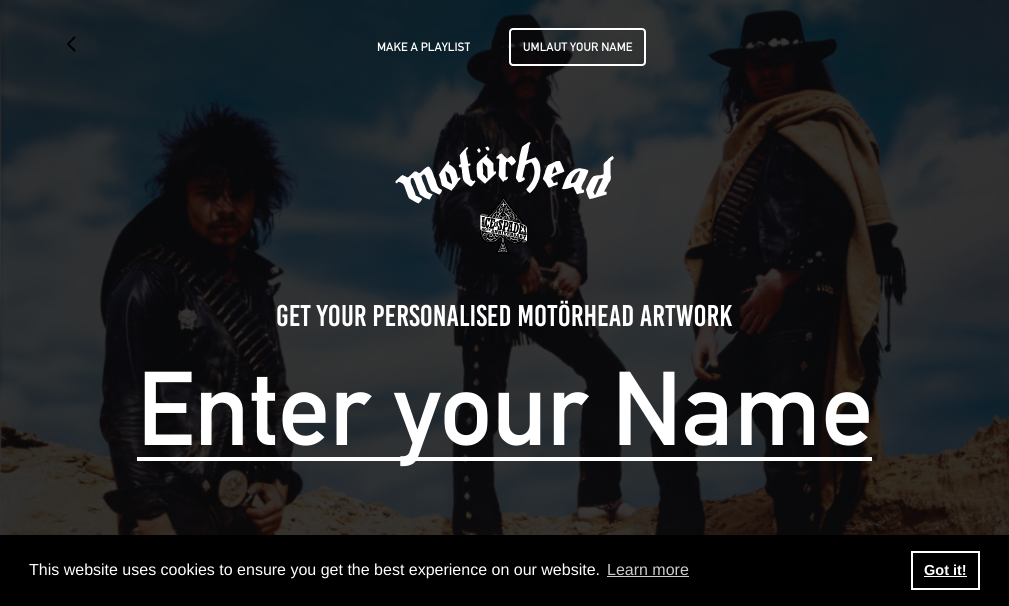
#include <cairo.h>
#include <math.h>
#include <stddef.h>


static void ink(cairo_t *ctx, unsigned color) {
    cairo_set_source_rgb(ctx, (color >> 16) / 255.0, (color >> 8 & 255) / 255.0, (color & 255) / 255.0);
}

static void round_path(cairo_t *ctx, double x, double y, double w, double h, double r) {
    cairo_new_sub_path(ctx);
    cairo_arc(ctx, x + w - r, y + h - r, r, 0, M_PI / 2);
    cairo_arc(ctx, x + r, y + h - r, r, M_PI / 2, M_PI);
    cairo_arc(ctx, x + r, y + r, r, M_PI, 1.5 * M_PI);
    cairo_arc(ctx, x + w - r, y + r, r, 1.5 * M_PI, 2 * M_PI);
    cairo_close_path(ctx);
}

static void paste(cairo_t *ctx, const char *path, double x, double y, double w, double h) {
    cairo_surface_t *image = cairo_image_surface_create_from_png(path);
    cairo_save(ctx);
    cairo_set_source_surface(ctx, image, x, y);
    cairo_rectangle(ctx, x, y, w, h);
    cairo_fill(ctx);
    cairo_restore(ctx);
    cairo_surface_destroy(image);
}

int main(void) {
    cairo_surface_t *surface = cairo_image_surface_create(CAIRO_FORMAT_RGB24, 1009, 606);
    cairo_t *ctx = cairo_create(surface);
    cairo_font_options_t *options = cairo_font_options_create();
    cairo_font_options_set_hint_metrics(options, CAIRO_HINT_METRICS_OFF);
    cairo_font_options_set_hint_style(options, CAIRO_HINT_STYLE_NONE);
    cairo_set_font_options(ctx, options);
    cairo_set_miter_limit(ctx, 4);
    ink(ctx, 0x070707);
    cairo_paint(ctx);
    paste(ctx, "media/1.png", 0, 0, 1009, 535);
    paste(ctx, "media/2.png", 67, 36, 9, 16);
    cairo_select_font_face(ctx, "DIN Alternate", CAIRO_FONT_SLANT_NORMAL, CAIRO_FONT_WEIGHT_BOLD);
    cairo_set_font_size(ctx, 12);
    ink(ctx, 0xFFFFFF);
    cairo_move_to(ctx, 377, 51);
    cairo_show_text(ctx, "MAKE A PLAYLIST");
    round_path(ctx, 510, 29, 135, 36, 3);
    cairo_stroke(ctx);
    cairo_move_to(ctx, 523, 51);
    cairo_show_text(ctx, "UMLAUT YOUR NAME");
    paste(ctx, "media/3.png", 395, 142, 219, 112);
    cairo_select_font_face(ctx, "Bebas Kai", CAIRO_FONT_SLANT_NORMAL, CAIRO_FONT_WEIGHT_NORMAL);
    cairo_set_font_size(ctx, 30);
    cairo_move_to(ctx, 276, 326);
    cairo_show_text(ctx, "Get your Personalised MOTöRHEAD artwork");
    cairo_rectangle(ctx, 137, 457, 735, 4);
    cairo_fill(ctx);
    cairo_select_font_face(ctx, "DIN Alternate", CAIRO_FONT_SLANT_NORMAL, CAIRO_FONT_WEIGHT_BOLD);
    cairo_set_font_size(ctx, 103);
    cairo_move_to(ctx, 137, 445);
    cairo_show_text(ctx, "Enter your Name");
    ink(ctx, 0x000000);
    cairo_rectangle(ctx, 0, 535, 1009, 71);
    cairo_fill(ctx);
    cairo_select_font_face(ctx, "Liberation Sans", CAIRO_FONT_SLANT_NORMAL, CAIRO_FONT_WEIGHT_NORMAL);
    cairo_set_font_size(ctx, 16);
    ink(ctx, 0xFFFFFF);
    cairo_move_to(ctx, 29, 575);
    cairo_show_text(ctx, "This website uses cookies to ensure you get the best experience on our website.");
    ink(ctx, 0xCCCCCC);
    cairo_move_to(ctx, 607, 575);
    cairo_show_text(ctx, "Learn more");
    cairo_rectangle(ctx, 607, 576, 82, 1);
    cairo_fill(ctx);
    cairo_rectangle(ctx, 912, 552, 67, 37);
    ink(ctx, 0xFFFFFF);
    cairo_stroke(ctx);
    cairo_select_font_face(ctx, "Liberation Sans", CAIRO_FONT_SLANT_NORMAL, CAIRO_FONT_WEIGHT_BOLD);
    cairo_set_font_size(ctx, 14.5);
    cairo_move_to(ctx, 924, 575);
    cairo_show_text(ctx, "Got it!");
    cairo_rectangle(ctx, 924, 576, 43, 1);
    cairo_fill(ctx);
    cairo_surface_write_to_png(surface, "image.png");
    cairo_font_options_destroy(options);
    cairo_destroy(ctx);
    cairo_surface_destroy(surface);
    return 0;
}
